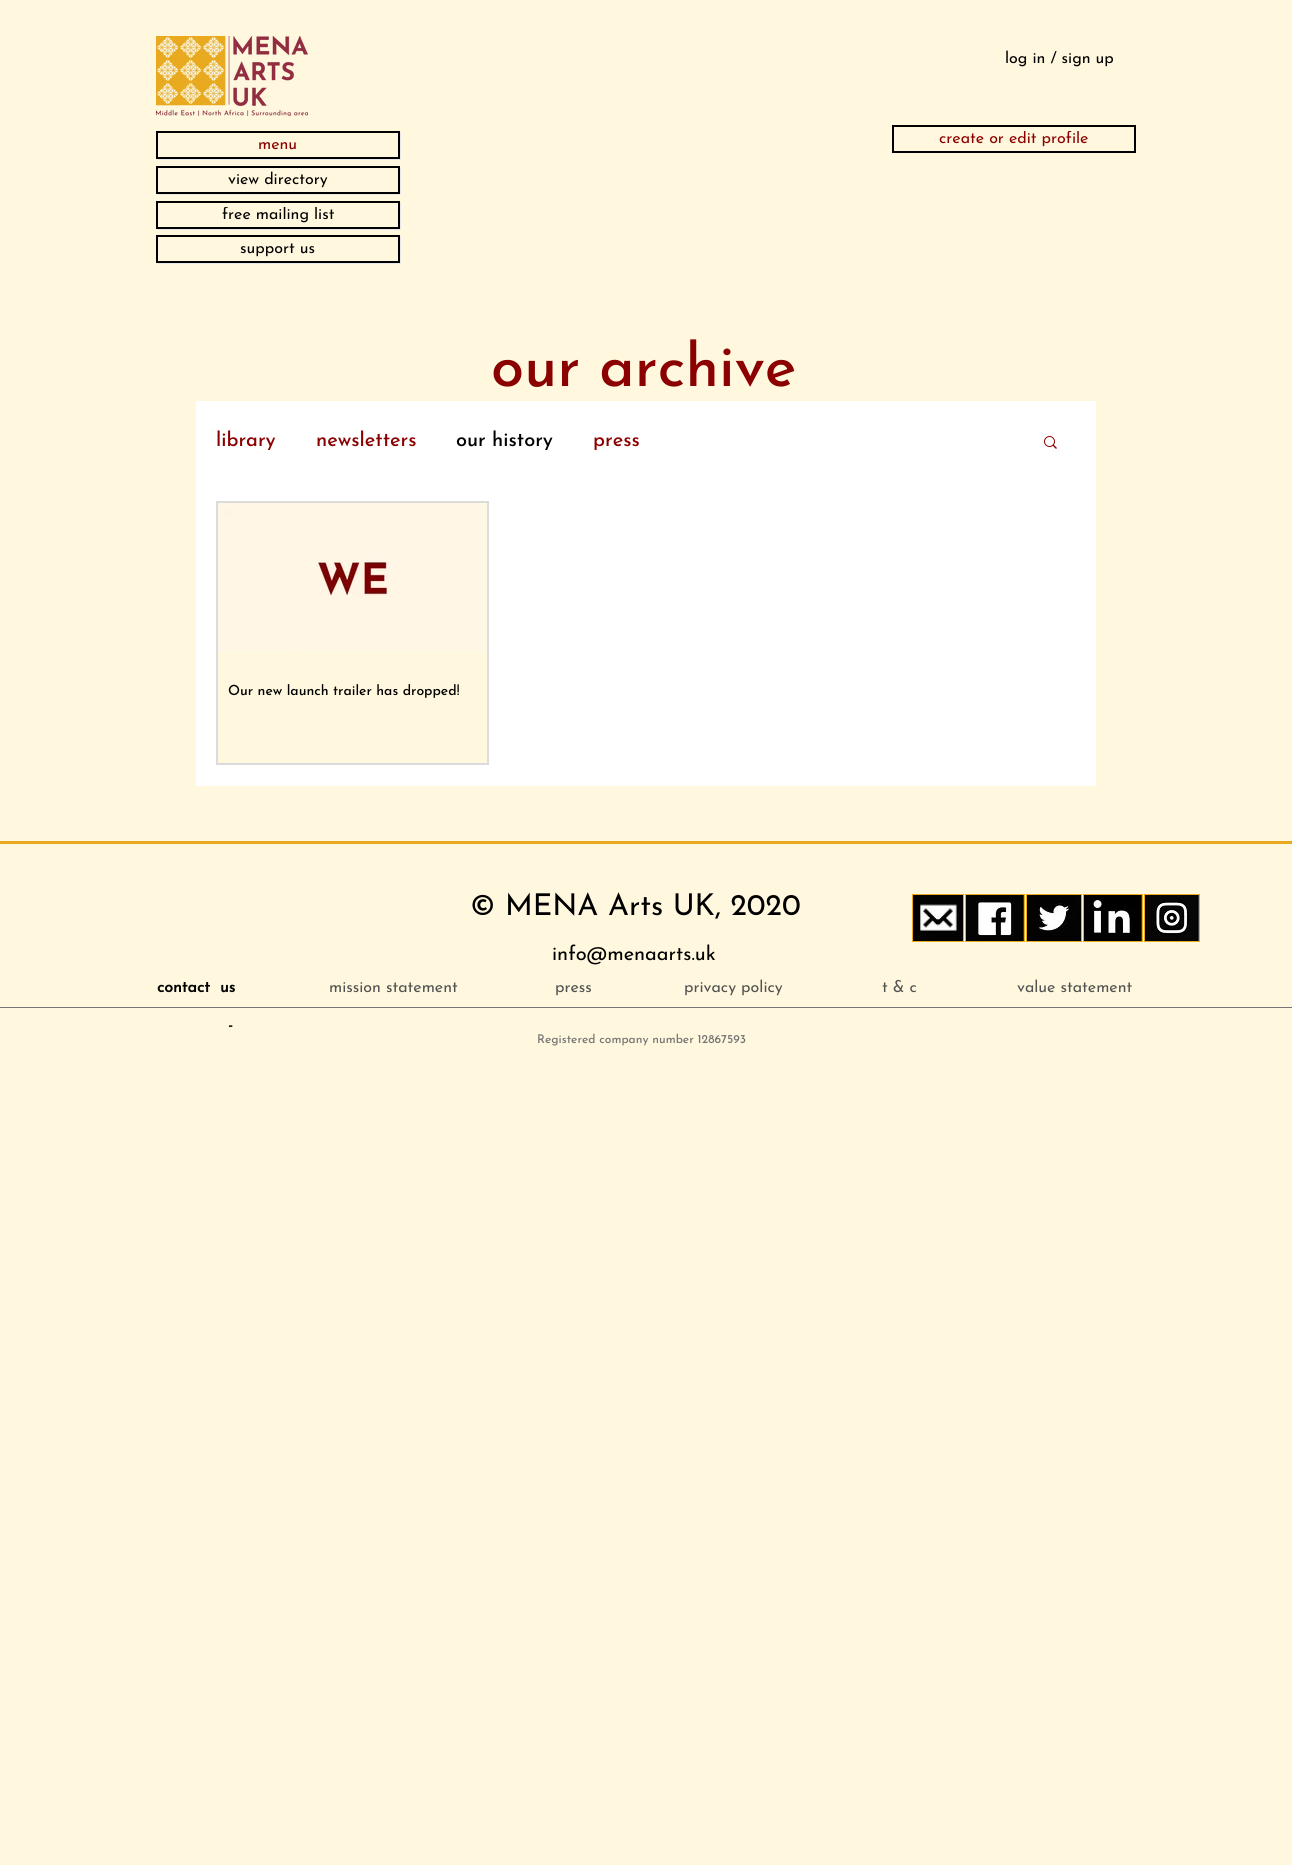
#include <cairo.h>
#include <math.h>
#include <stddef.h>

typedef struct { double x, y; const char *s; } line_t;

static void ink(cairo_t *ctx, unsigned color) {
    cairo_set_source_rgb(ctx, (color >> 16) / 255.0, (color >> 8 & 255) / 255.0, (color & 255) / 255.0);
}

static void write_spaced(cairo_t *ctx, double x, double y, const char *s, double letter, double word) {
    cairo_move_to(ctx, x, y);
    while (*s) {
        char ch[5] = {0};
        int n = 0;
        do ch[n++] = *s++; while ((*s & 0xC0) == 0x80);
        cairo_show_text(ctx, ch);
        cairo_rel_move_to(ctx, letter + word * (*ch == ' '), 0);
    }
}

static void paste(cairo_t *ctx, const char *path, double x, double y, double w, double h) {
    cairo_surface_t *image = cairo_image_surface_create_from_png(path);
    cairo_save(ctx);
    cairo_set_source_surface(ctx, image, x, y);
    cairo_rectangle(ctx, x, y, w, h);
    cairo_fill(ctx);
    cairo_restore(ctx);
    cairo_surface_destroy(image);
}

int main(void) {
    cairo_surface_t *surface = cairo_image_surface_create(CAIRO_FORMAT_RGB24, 1292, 1865);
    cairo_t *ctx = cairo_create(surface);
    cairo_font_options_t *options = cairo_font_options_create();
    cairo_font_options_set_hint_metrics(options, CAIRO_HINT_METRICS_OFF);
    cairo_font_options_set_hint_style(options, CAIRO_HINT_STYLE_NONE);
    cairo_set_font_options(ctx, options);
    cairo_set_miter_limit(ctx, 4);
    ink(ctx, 0xFFF8DE);
    cairo_paint(ctx);
    paste(ctx, "media/1.png", 156, 36, 152, 80);
    cairo_select_font_face(ctx, "Josefin Sans", CAIRO_FONT_SLANT_NORMAL, CAIRO_FONT_WEIGHT_NORMAL);
    cairo_set_font_size(ctx, 16);
    ink(ctx, 0x000000);
    cairo_move_to(ctx, 1005, 63);
    cairo_show_text(ctx, "log in / sign up");
    ink(ctx, 0xE8E6E6);
    cairo_new_path(ctx);
    cairo_move_to(ctx, 157, 159);
    cairo_line_to(ctx, 158, 160);
    cairo_line_to(ctx, 400, 160);
    cairo_line_to(ctx, 401, 159);
    cairo_line_to(ctx, 401, 133);
    cairo_line_to(ctx, 400, 132);
    cairo_line_to(ctx, 400, 158);
    cairo_curve_to(ctx, 400, 159, 400, 159, 399, 159);
    cairo_close_path(ctx);
    cairo_fill(ctx);
    cairo_rectangle(ctx, 157, 132, 242, 26);
    ink(ctx, 0x000000);
    cairo_stroke(ctx);
    ink(ctx, 0x8B0000);
    cairo_move_to(ctx, 258, 149);
    cairo_show_text(ctx, "menu");
    cairo_rectangle(ctx, 893, 126, 242, 26);
    ink(ctx, 0x000000);
    cairo_stroke(ctx);
    cairo_save(ctx);
    cairo_rectangle(ctx, 939, 131, 150, 16);
    cairo_clip(ctx);
    ink(ctx, 0x8B0000);
    cairo_move_to(ctx, 939, 143);
    cairo_show_text(ctx, "create or edit profile");
    cairo_restore(ctx);
    ink(ctx, 0xE8E6E6);
    cairo_new_path(ctx);
    cairo_move_to(ctx, 157, 194);
    cairo_line_to(ctx, 158, 195);
    cairo_line_to(ctx, 400, 195);
    cairo_line_to(ctx, 401, 194);
    cairo_line_to(ctx, 401, 168);
    cairo_line_to(ctx, 400, 167);
    cairo_line_to(ctx, 400, 193);
    cairo_curve_to(ctx, 400, 194, 400, 194, 399, 194);
    cairo_close_path(ctx);
    cairo_fill(ctx);
    cairo_rectangle(ctx, 157, 167, 242, 26);
    ink(ctx, 0x000000);
    cairo_stroke(ctx);
    cairo_move_to(ctx, 228, 184);
    cairo_show_text(ctx, "view directory");
    ink(ctx, 0xE8E6E6);
    cairo_new_path(ctx);
    cairo_move_to(ctx, 157, 229);
    cairo_line_to(ctx, 158, 230);
    cairo_line_to(ctx, 400, 230);
    cairo_line_to(ctx, 401, 229);
    cairo_line_to(ctx, 401, 203);
    cairo_line_to(ctx, 400, 202);
    cairo_line_to(ctx, 400, 228);
    cairo_curve_to(ctx, 400, 229, 400, 229, 399, 229);
    cairo_close_path(ctx);
    cairo_fill(ctx);
    cairo_rectangle(ctx, 157, 202, 242, 26);
    ink(ctx, 0x000000);
    cairo_stroke(ctx);
    cairo_save(ctx);
    cairo_rectangle(ctx, 222, 207, 112, 16);
    cairo_clip(ctx);
    cairo_move_to(ctx, 222, 219);
    cairo_show_text(ctx, "free mailing list");
    cairo_restore(ctx);
    ink(ctx, 0xE8E6E6);
    cairo_new_path(ctx);
    cairo_move_to(ctx, 157, 263);
    cairo_line_to(ctx, 158, 264);
    cairo_line_to(ctx, 400, 264);
    cairo_line_to(ctx, 401, 263);
    cairo_line_to(ctx, 401, 237);
    cairo_line_to(ctx, 400, 236);
    cairo_line_to(ctx, 400, 262);
    cairo_curve_to(ctx, 400, 263, 400, 263, 399, 263);
    cairo_close_path(ctx);
    cairo_fill(ctx);
    cairo_rectangle(ctx, 157, 236, 242, 26);
    ink(ctx, 0x000000);
    cairo_stroke(ctx);
    cairo_move_to(ctx, 240, 253);
    cairo_show_text(ctx, "support us");
    cairo_select_font_face(ctx, "Josefin Sans Medium", CAIRO_FONT_SLANT_NORMAL, CAIRO_FONT_WEIGHT_NORMAL);
    cairo_set_font_size(ctx, 60);
    ink(ctx, 0x8B0000);
    cairo_move_to(ctx, 491, 386);
    cairo_show_text(ctx, "our archive");
    ink(ctx, 0xFFFFFF);
    cairo_rectangle(ctx, 196, 401, 900, 385);
    cairo_fill(ctx);
    cairo_set_font_size(ctx, 20);
    ink(ctx, 0x8B0000);
    cairo_move_to(ctx, 216, 446);
    cairo_show_text(ctx, "library");
    cairo_move_to(ctx, 316, 446);
    cairo_show_text(ctx, "newsletters");
    ink(ctx, 0x000000);
    cairo_move_to(ctx, 456, 446);
    cairo_show_text(ctx, "our history");
    ink(ctx, 0x8B0000);
    cairo_move_to(ctx, 593, 446);
    cairo_show_text(ctx, "press");
    paste(ctx, "media/2.png", 1044, 436, 13, 13);
    cairo_rectangle(ctx, 217, 502, 271, 262);
    ink(ctx, 0xDBDBDB);
    cairo_stroke(ctx);
    paste(ctx, "media/3.png", 218, 503, 269, 150);
    paste(ctx, "media/4.png", 218, 503, 265, 147);
    ink(ctx, 0xFFF8DE);
    cairo_rectangle(ctx, 218, 653, 269, 110);
    cairo_fill(ctx);
    cairo_set_font_size(ctx, 14);
    ink(ctx, 0x000000);
    cairo_move_to(ctx, 228, 695);
    cairo_show_text(ctx, "Our new launch trailer has dropped!");
    ink(ctx, 0xE9AA20);
    cairo_rectangle(ctx, 0, 841, 1292, 3);
    cairo_fill(ctx);
    cairo_select_font_face(ctx, "Josefin Sans", CAIRO_FONT_SLANT_NORMAL, CAIRO_FONT_WEIGHT_NORMAL);
    cairo_set_font_size(ctx, 30);
    ink(ctx, 0x000000);
    cairo_move_to(ctx, 470, 915);
    cairo_show_text(ctx, "© MENA Arts UK, 2020");
    ink(ctx, 0xE9AA20);
    cairo_rectangle(ctx, 912, 894, 52, 48);
    cairo_fill(ctx);
    paste(ctx, "media/5.png", 913, 895, 50, 46);
    cairo_rectangle(ctx, 965, 894, 60, 48);
    cairo_fill(ctx);
    paste(ctx, "media/6.png", 966, 895, 58, 46);
    cairo_rectangle(ctx, 1026, 894, 56, 48);
    cairo_fill(ctx);
    paste(ctx, "media/7.png", 1027, 895, 54, 46);
    cairo_rectangle(ctx, 1083, 894, 60, 48);
    cairo_fill(ctx);
    paste(ctx, "media/8.png", 1084, 895, 58, 46);
    cairo_rectangle(ctx, 1144, 894, 56, 48);
    cairo_fill(ctx);
    paste(ctx, "media/9.png", 1145, 895, 54, 46);
    cairo_set_font_size(ctx, 20);
    ink(ctx, 0x000000);
    cairo_move_to(ctx, 552, 960);
    cairo_show_text(ctx, "info@menaarts.uk");
    cairo_select_font_face(ctx, "Josefin Sans", CAIRO_FONT_SLANT_NORMAL, CAIRO_FONT_WEIGHT_BOLD);
    cairo_set_font_size(ctx, 16);
    write_spaced(ctx, 157, 992, "contact us", 0, 5);
    cairo_select_font_face(ctx, "Josefin Sans", CAIRO_FONT_SLANT_NORMAL, CAIRO_FONT_WEIGHT_NORMAL);
    ink(ctx, 0x525252);
    {
        static const line_t items[] = {
            {329, 992, "mission statement"},
            {555, 992, "press"},
            {684, 992, "privacy policy"},
            {882, 992, "t & c"},
            {1017, 992, "value statement"},
        };
        for (size_t i = 0; i < sizeof items / sizeof *items; i++) {
            cairo_move_to(ctx, items[i].x, items[i].y);
            cairo_show_text(ctx, items[i].s);
        }
    }
    ink(ctx, 0x757575);
    cairo_rectangle(ctx, 0, 1007, 1292, 1);
    cairo_fill(ctx);
    cairo_set_font_size(ctx, 18);
    ink(ctx, 0x000000);
    cairo_move_to(ctx, 228, 1030);
    cairo_show_text(ctx, "-");
    cairo_select_font_face(ctx, "Josefin Sans Medium", CAIRO_FONT_SLANT_NORMAL, CAIRO_FONT_WEIGHT_NORMAL);
    cairo_set_font_size(ctx, 12);
    ink(ctx, 0x757575);
    cairo_move_to(ctx, 537, 1043);
    cairo_show_text(ctx, "Registered company number 12867593");
    cairo_surface_write_to_png(surface, "image.png");
    cairo_font_options_destroy(options);
    cairo_destroy(ctx);
    cairo_surface_destroy(surface);
    return 0;
}
